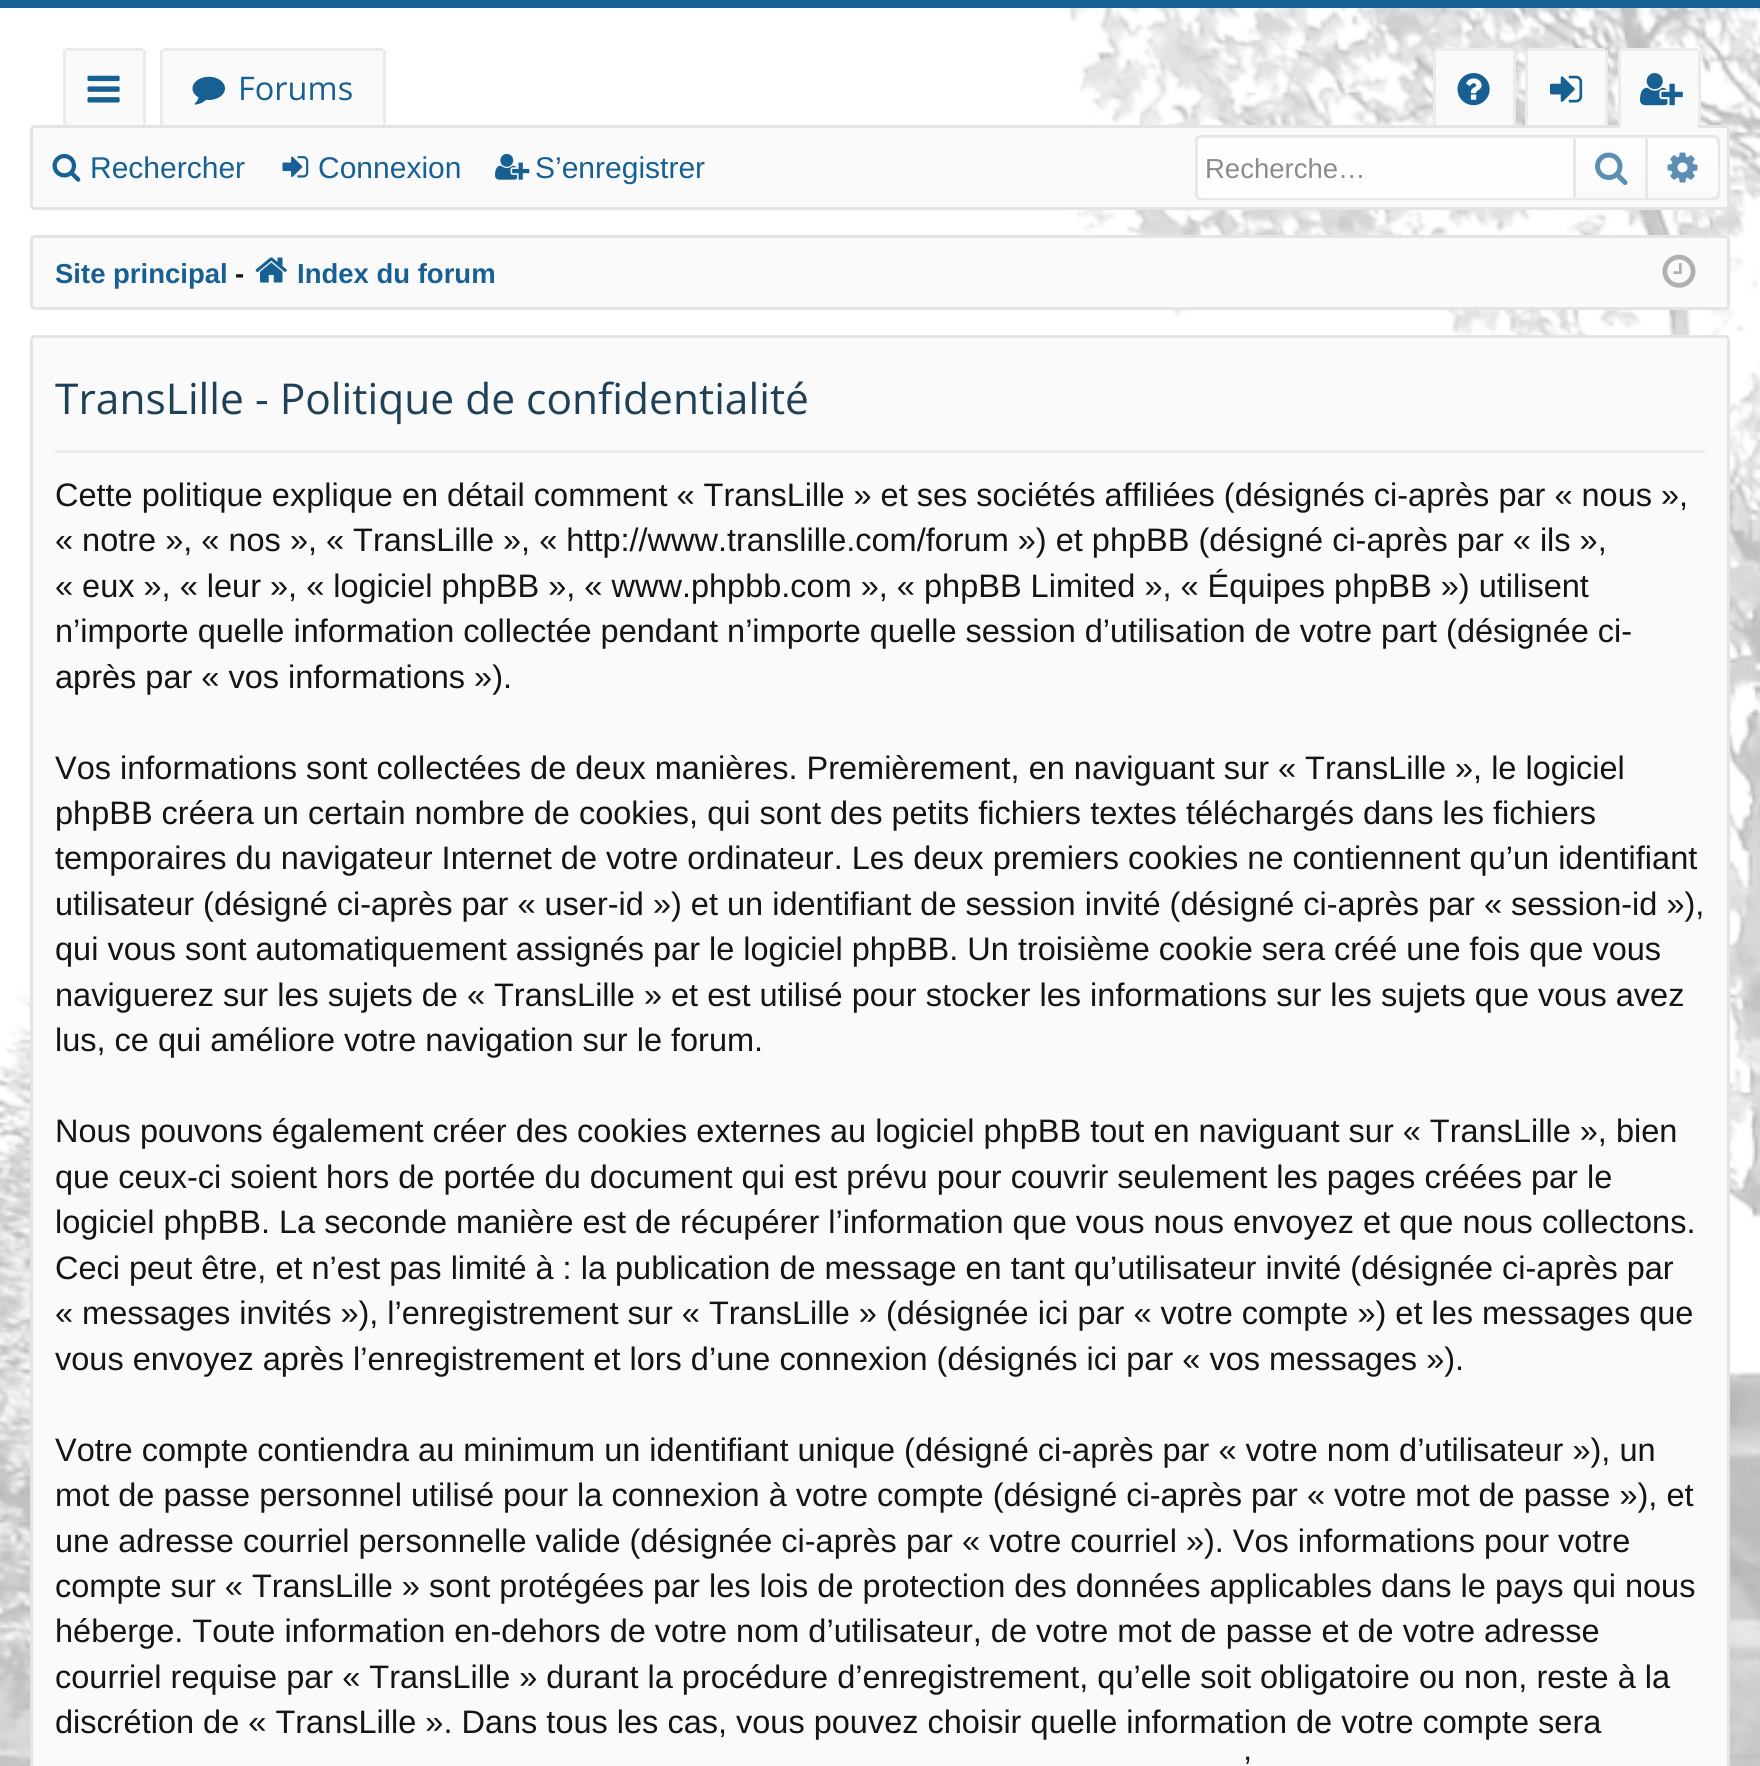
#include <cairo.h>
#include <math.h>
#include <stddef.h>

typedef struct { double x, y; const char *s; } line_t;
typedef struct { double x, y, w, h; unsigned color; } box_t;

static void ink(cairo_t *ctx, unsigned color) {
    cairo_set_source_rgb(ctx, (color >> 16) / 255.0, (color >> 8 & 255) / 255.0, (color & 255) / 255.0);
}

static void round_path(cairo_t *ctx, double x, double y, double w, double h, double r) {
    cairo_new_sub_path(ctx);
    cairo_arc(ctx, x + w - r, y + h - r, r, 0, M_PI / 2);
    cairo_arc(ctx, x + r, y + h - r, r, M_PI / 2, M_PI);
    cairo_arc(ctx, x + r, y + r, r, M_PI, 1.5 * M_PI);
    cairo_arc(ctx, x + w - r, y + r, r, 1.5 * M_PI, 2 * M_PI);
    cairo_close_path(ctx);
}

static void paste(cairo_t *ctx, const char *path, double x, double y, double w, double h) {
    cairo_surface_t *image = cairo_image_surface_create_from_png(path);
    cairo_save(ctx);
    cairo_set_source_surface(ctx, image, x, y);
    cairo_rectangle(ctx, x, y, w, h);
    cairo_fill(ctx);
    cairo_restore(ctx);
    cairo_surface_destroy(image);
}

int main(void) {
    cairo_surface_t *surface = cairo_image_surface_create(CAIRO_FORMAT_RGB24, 1760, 1766);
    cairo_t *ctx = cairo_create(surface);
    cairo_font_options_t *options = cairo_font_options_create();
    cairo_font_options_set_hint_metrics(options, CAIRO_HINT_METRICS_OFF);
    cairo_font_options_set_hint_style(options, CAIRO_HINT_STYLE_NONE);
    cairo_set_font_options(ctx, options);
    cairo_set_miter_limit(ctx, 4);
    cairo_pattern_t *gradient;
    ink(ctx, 0xFFFFFF);
    cairo_paint(ctx);
    paste(ctx, "media/1.png", 0, 8, 1760, 1758);
    ink(ctx, 0x176093);
    cairo_rectangle(ctx, 0, 0, 1760, 8);
    cairo_fill(ctx);
    ink(ctx, 0xFAFAFA);
    cairo_new_path(ctx);
    cairo_move_to(ctx, 67.5, 50);
    cairo_line_to(ctx, 140.5, 50);
    cairo_curve_to(ctx, 142, 50, 143, 51, 143, 52.5);
    cairo_line_to(ctx, 143, 128);
    cairo_line_to(ctx, 65, 128);
    cairo_line_to(ctx, 65, 52.5);
    cairo_curve_to(ctx, 65, 51, 66, 50, 67.5, 50);
    cairo_close_path(ctx);
    cairo_fill(ctx);
    {
        static const box_t items[] = {
            {65, 48, 78, 3, 0xEBEBEB},
            {143, 50, 3, 78, 0xEBEBEB},
            {63, 50, 3, 78, 0xEBEBEB},
        };
        for (size_t i = 0; i < sizeof items / sizeof *items; i++) {
            ink(ctx, items[i].color);
            cairo_rectangle(ctx, items[i].x, items[i].y, items[i].w, items[i].h);
            cairo_fill(ctx);
        }
    }
    paste(ctx, "media/2.png", 87, 75, 33, 28);
    ink(ctx, 0xFAFAFA);
    cairo_new_path(ctx);
    cairo_move_to(ctx, 165.5, 50);
    cairo_line_to(ctx, 380.5, 50);
    cairo_curve_to(ctx, 382, 50, 383, 51, 383, 52.5);
    cairo_line_to(ctx, 383, 128);
    cairo_line_to(ctx, 163, 128);
    cairo_line_to(ctx, 163, 52.5);
    cairo_curve_to(ctx, 163, 51, 164, 50, 165.5, 50);
    cairo_close_path(ctx);
    cairo_fill(ctx);
    {
        static const box_t items[] = {
            {163, 48, 220, 3, 0xEBEBEB},
            {383, 50, 3, 78, 0xEBEBEB},
            {160, 50, 3, 78, 0xEBEBEB},
        };
        for (size_t i = 0; i < sizeof items / sizeof *items; i++) {
            ink(ctx, items[i].color);
            cairo_rectangle(ctx, items[i].x, items[i].y, items[i].w, items[i].h);
            cairo_fill(ctx);
        }
    }
    paste(ctx, "media/3.png", 192, 76, 33, 29);
    cairo_select_font_face(ctx, "Open Sans", CAIRO_FONT_SLANT_NORMAL, CAIRO_FONT_WEIGHT_NORMAL);
    cairo_set_font_size(ctx, 32.5);
    ink(ctx, 0x176093);
    cairo_move_to(ctx, 238, 100);
    cairo_show_text(ctx, "Forums");
    ink(ctx, 0xFAFAFA);
    cairo_new_path(ctx);
    cairo_move_to(ctx, 1437.5, 50);
    cairo_line_to(ctx, 1510.5, 50);
    cairo_curve_to(ctx, 1512, 50, 1513, 51, 1513, 52.5);
    cairo_line_to(ctx, 1513, 128);
    cairo_line_to(ctx, 1435, 128);
    cairo_line_to(ctx, 1435, 52.5);
    cairo_curve_to(ctx, 1435, 51, 1436, 50, 1437.5, 50);
    cairo_close_path(ctx);
    cairo_fill(ctx);
    {
        static const box_t items[] = {
            {1435, 48, 78, 3, 0xEBEBEB},
            {1513, 50, 3, 78, 0xEBEBEB},
            {1433, 50, 3, 78, 0xEBEBEB},
        };
        for (size_t i = 0; i < sizeof items / sizeof *items; i++) {
            ink(ctx, items[i].color);
            cairo_rectangle(ctx, items[i].x, items[i].y, items[i].w, items[i].h);
            cairo_fill(ctx);
        }
    }
    paste(ctx, "media/4.png", 1457, 73, 33, 33);
    ink(ctx, 0xFAFAFA);
    cairo_new_path(ctx);
    cairo_move_to(ctx, 1530.5, 50);
    cairo_line_to(ctx, 1602.5, 50);
    cairo_curve_to(ctx, 1604, 50, 1605, 51, 1605, 52.5);
    cairo_line_to(ctx, 1605, 128);
    cairo_line_to(ctx, 1528, 128);
    cairo_line_to(ctx, 1528, 52.5);
    cairo_curve_to(ctx, 1528, 51, 1529, 50, 1530.5, 50);
    cairo_close_path(ctx);
    cairo_fill(ctx);
    {
        static const box_t items[] = {
            {1528, 48, 77, 3, 0xEBEBEB},
            {1605, 50, 3, 78, 0xEBEBEB},
            {1525, 50, 3, 78, 0xEBEBEB},
        };
        for (size_t i = 0; i < sizeof items / sizeof *items; i++) {
            ink(ctx, items[i].color);
            cairo_rectangle(ctx, items[i].x, items[i].y, items[i].w, items[i].h);
            cairo_fill(ctx);
        }
    }
    paste(ctx, "media/5.png", 1550, 75, 33, 28);
    ink(ctx, 0xFAFAFA);
    cairo_new_path(ctx);
    cairo_move_to(ctx, 1622.5, 50);
    cairo_line_to(ctx, 1695.5, 50);
    cairo_curve_to(ctx, 1697, 50, 1698, 51, 1698, 52.5);
    cairo_line_to(ctx, 1698, 128);
    cairo_line_to(ctx, 1620, 128);
    cairo_line_to(ctx, 1620, 52.5);
    cairo_curve_to(ctx, 1620, 51, 1621, 50, 1622.5, 50);
    cairo_close_path(ctx);
    cairo_fill(ctx);
    {
        static const box_t items[] = {
            {1620, 48, 78, 3, 0xEBEBEB},
            {1698, 50, 3, 78, 0xEBEBEB},
            {1618, 50, 3, 78, 0xEBEBEB},
        };
        for (size_t i = 0; i < sizeof items / sizeof *items; i++) {
            ink(ctx, items[i].color);
            cairo_rectangle(ctx, items[i].x, items[i].y, items[i].w, items[i].h);
            cairo_fill(ctx);
        }
    }
    paste(ctx, "media/6.png", 1640, 73, 43, 33);
    ink(ctx, 0xFAFAFA);
    round_path(ctx, 31.5, 126.5, 1697, 82, 3.5);
    cairo_fill_preserve(ctx);
    ink(ctx, 0xE4E4E4);
    cairo_set_line_width(ctx, 3);
    cairo_stroke(ctx);
    ink(ctx, 0xFAFAFA);
    cairo_new_path(ctx);
    cairo_move_to(ctx, 1625, 123);
    cairo_line_to(ctx, 1693, 123);
    cairo_curve_to(ctx, 1696, 123, 1698, 125, 1698, 128);
    cairo_line_to(ctx, 1698, 133);
    cairo_line_to(ctx, 1620, 133);
    cairo_line_to(ctx, 1620, 128);
    cairo_curve_to(ctx, 1620, 125, 1622, 123, 1625, 123);
    cairo_close_path(ctx);
    cairo_fill(ctx);
    paste(ctx, "media/7.png", 52, 153, 29, 29);
    cairo_select_font_face(ctx, "Liberation Sans", CAIRO_FONT_SLANT_NORMAL, CAIRO_FONT_WEIGHT_NORMAL);
    cairo_set_font_size(ctx, 30);
    ink(ctx, 0x176093);
    cairo_move_to(ctx, 90, 178);
    cairo_show_text(ctx, "Rechercher");
    paste(ctx, "media/8.png", 282, 156, 27, 22);
    cairo_move_to(ctx, 318, 178);
    cairo_show_text(ctx, "Connexion");
    paste(ctx, "media/9.png", 495, 153, 35, 27);
    cairo_move_to(ctx, 535, 178);
    cairo_show_text(ctx, "S’enregistrer");
    round_path(ctx, 1196.5, 136.5, 522, 62, 3.5);
    ink(ctx, 0xE8E8E8);
    cairo_stroke(ctx);
    ink(ctx, 0xFEFEFE);
    cairo_new_path(ctx);
    cairo_move_to(ctx, 1203, 138);
    cairo_line_to(ctx, 1573, 138);
    cairo_line_to(ctx, 1573, 198);
    cairo_line_to(ctx, 1203, 198);
    cairo_curve_to(ctx, 1200, 198, 1198, 196, 1198, 193);
    cairo_line_to(ctx, 1198, 143);
    cairo_curve_to(ctx, 1198, 140, 1200, 138, 1203, 138);
    cairo_close_path(ctx);
    cairo_fill(ctx);
    cairo_set_font_size(ctx, 27.5);
    ink(ctx, 0x8B8B8B);
    cairo_move_to(ctx, 1205, 178);
    cairo_show_text(ctx, "Recherche…");
    gradient = cairo_pattern_create_linear(1610, 138, 1610, 198);
    cairo_pattern_add_color_stop_rgba(gradient, 0, 0.996, 0.996, 0.996, 1);
    cairo_pattern_add_color_stop_rgba(gradient, 1, 0.98, 0.98, 0.98, 1);
    cairo_set_source(ctx, gradient);
    cairo_pattern_destroy(gradient);
    cairo_rectangle(ctx, 1576, 138, 69, 60);
    cairo_fill(ctx);
    ink(ctx, 0xE8E8E8);
    cairo_rectangle(ctx, 1645, 138, 3, 60);
    cairo_fill(ctx);
    cairo_rectangle(ctx, 1573, 138, 3, 60);
    cairo_fill(ctx);
    paste(ctx, "media/10.png", 1595, 152, 33, 33);
    ink(ctx, 0xFAFAFA);
    cairo_new_path(ctx);
    cairo_move_to(ctx, 1648, 138);
    cairo_line_to(ctx, 1708, 138);
    cairo_curve_to(ctx, 1713.5, 138, 1718, 142.5, 1718, 148);
    cairo_line_to(ctx, 1718, 188);
    cairo_curve_to(ctx, 1718, 193.5, 1713.5, 198, 1708, 198);
    cairo_line_to(ctx, 1648, 198);
    cairo_close_path(ctx);
    cairo_fill(ctx);
    gradient = cairo_pattern_create_linear(1683, 138, 1683, 198);
    cairo_pattern_add_color_stop_rgba(gradient, 0, 0.996, 0.996, 0.996, 1);
    cairo_pattern_add_color_stop_rgba(gradient, 1, 0.996, 0.996, 0.996, 0);
    cairo_set_source(ctx, gradient);
    cairo_pattern_destroy(gradient);
    cairo_new_path(ctx);
    cairo_move_to(ctx, 1648, 138);
    cairo_line_to(ctx, 1708, 138);
    cairo_curve_to(ctx, 1713.5, 138, 1718, 142.5, 1718, 148);
    cairo_line_to(ctx, 1718, 188);
    cairo_curve_to(ctx, 1718, 193.5, 1713.5, 198, 1708, 198);
    cairo_line_to(ctx, 1648, 198);
    cairo_close_path(ctx);
    cairo_fill(ctx);
    paste(ctx, "media/11.png", 1667, 152, 31, 31);
    ink(ctx, 0xFAFAFA);
    round_path(ctx, 31.5, 236.5, 1697, 72, 3.5);
    cairo_fill_preserve(ctx);
    ink(ctx, 0xE4E4E4);
    cairo_stroke(ctx);
    cairo_select_font_face(ctx, "Liberation Sans", CAIRO_FONT_SLANT_NORMAL, CAIRO_FONT_WEIGHT_BOLD);
    ink(ctx, 0x176093);
    cairo_move_to(ctx, 55, 283);
    cairo_show_text(ctx, "Site principal");
    ink(ctx, 0x141414);
    cairo_move_to(ctx, 235, 283);
    cairo_show_text(ctx, "-");
    paste(ctx, "media/12.png", 255, 257, 32, 26);
    ink(ctx, 0x176093);
    cairo_move_to(ctx, 297, 283);
    cairo_show_text(ctx, "Index du forum");
    paste(ctx, "media/13.png", 1662, 254, 34, 34);
    ink(ctx, 0xFAFAFA);
    cairo_new_path(ctx);
    cairo_move_to(ctx, 35, 338);
    cairo_line_to(ctx, 1725, 338);
    cairo_curve_to(ctx, 1726, 338, 1728, 339, 1728, 340);
    cairo_line_to(ctx, 1728, 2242);
    cairo_curve_to(ctx, 1728, 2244, 1724, 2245, 1720, 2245);
    cairo_line_to(ctx, 40, 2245);
    cairo_curve_to(ctx, 36, 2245, 32, 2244, 32, 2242);
    cairo_line_to(ctx, 32, 340);
    cairo_curve_to(ctx, 32, 339, 34, 338, 35, 338);
    cairo_close_path(ctx);
    cairo_fill(ctx);
    cairo_new_path(ctx);
    cairo_move_to(ctx, 35, 336.5);
    cairo_line_to(ctx, 1725, 336.5);
    cairo_curve_to(ctx, 1727, 336.5, 1728.5, 338, 1728.5, 340);
    cairo_line_to(ctx, 1728.5, 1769);
    cairo_curve_to(ctx, 1728.5, 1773.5, 1724.5, 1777.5, 1720, 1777.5);
    cairo_line_to(ctx, 40, 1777.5);
    cairo_curve_to(ctx, 35.5, 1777.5, 31.5, 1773.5, 31.5, 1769);
    cairo_line_to(ctx, 31.5, 340);
    cairo_curve_to(ctx, 31.5, 338, 33, 336.5, 35, 336.5);
    cairo_close_path(ctx);
    ink(ctx, 0xE4E4E4);
    cairo_stroke(ctx);
    ink(ctx, 0xEBEBEB);
    cairo_rectangle(ctx, 55, 450, 1650, 3);
    cairo_fill(ctx);
    cairo_select_font_face(ctx, "Open Sans", CAIRO_FONT_SLANT_NORMAL, CAIRO_FONT_WEIGHT_NORMAL);
    cairo_set_font_size(ctx, 42.5);
    ink(ctx, 0x1F4158);
    cairo_move_to(ctx, 55, 414);
    cairo_show_text(ctx, "TransLille - Politique de confidentialité");
    cairo_select_font_face(ctx, "Liberation Sans", CAIRO_FONT_SLANT_NORMAL, CAIRO_FONT_WEIGHT_NORMAL);
    cairo_set_font_size(ctx, 32.5);
    ink(ctx, 0x141414);
    {
        static const line_t items[] = {
            {55, 506, "Cette politique explique en détail comment « TransLille » et ses sociétés affiliées (désignés ci-après par « nous »,"},
            {55, 551, "« notre », « nos », « TransLille », « http://www.translille.com/forum ») et phpBB (désigné ci-après par « ils »,"},
            {55, 597, "« eux », « leur », « logiciel phpBB », « www.phpbb.com », « phpBB Limited », « Équipes phpBB ») utilisent"},
            {55, 642, "n’importe quelle information collectée pendant n’importe quelle session d’utilisation de votre part (désignée ci-"},
            {55, 688, "après par « vos informations »)."},
            {55, 779, "Vos informations sont collectées de deux manières. Premièrement, en naviguant sur « TransLille », le logiciel"},
            {55, 824, "phpBB créera un certain nombre de cookies, qui sont des petits fichiers textes téléchargés dans les fichiers"},
            {55, 869, "temporaires du navigateur Internet de votre ordinateur. Les deux premiers cookies ne contiennent qu’un identifiant"},
            {55, 915, "utilisateur (désigné ci-après par « user-id ») et un identifiant de session invité (désigné ci-après par « session-id »),"},
            {55, 960, "qui vous sont automatiquement assignés par le logiciel phpBB. Un troisième cookie sera créé une fois que vous"},
            {55, 1006, "naviguerez sur les sujets de « TransLille » et est utilisé pour stocker les informations sur les sujets que vous avez"},
            {55, 1051, "lus, ce qui améliore votre navigation sur le forum."},
            {55, 1142, "Nous pouvons également créer des cookies externes au logiciel phpBB tout en naviguant sur « TransLille », bien"},
            {55, 1188, "que ceux-ci soient hors de portée du document qui est prévu pour couvrir seulement les pages créées par le"},
            {55, 1233, "logiciel phpBB. La seconde manière est de récupérer l’information que vous nous envoyez et que nous collectons."},
            {55, 1279, "Ceci peut être, et n’est pas limité à : la publication de message en tant qu’utilisateur invité (désignée ci-après par"},
            {55, 1324, "« messages invités »), l’enregistrement sur « TransLille » (désignée ici par « votre compte ») et les messages que"},
            {55, 1370, "vous envoyez après l’enregistrement et lors d’une connexion (désignés ici par « vos messages »)."},
            {55, 1461, "Votre compte contiendra au minimum un identifiant unique (désigné ci-après par « votre nom d’utilisateur »), un"},
            {55, 1506, "mot de passe personnel utilisé pour la connexion à votre compte (désigné ci-après par « votre mot de passe »), et"},
            {55, 1552, "une adresse courriel personnelle valide (désignée ci-après par « votre courriel »). Vos informations pour votre"},
            {55, 1597, "compte sur « TransLille » sont protégées par les lois de protection des données applicables dans le pays qui nous"},
            {55, 1642, "héberge. Toute information en-dehors de votre nom d’utilisateur, de votre mot de passe et de votre adresse"},
            {55, 1688, "courriel requise par « TransLille » durant la procédure d’enregistrement, qu’elle soit obligatoire ou non, reste à la"},
            {55, 1733, "discrétion de « TransLille ». Dans tous les cas, vous pouvez choisir quelle information de votre compte sera"},
            {1244, 1779, "’"},
        };
        for (size_t i = 0; i < sizeof items / sizeof *items; i++) {
            cairo_move_to(ctx, items[i].x, items[i].y);
            cairo_show_text(ctx, items[i].s);
        }
    }
    cairo_surface_write_to_png(surface, "image.png");
    cairo_font_options_destroy(options);
    cairo_destroy(ctx);
    cairo_surface_destroy(surface);
    return 0;
}
